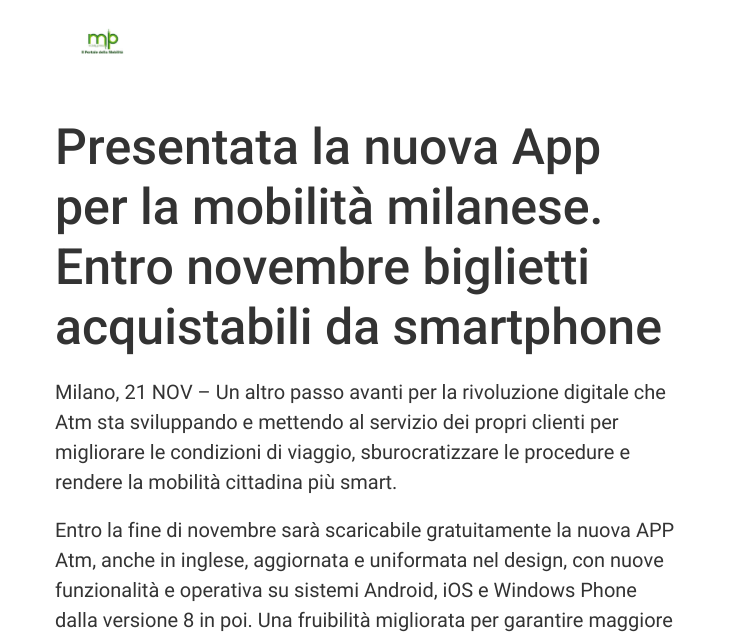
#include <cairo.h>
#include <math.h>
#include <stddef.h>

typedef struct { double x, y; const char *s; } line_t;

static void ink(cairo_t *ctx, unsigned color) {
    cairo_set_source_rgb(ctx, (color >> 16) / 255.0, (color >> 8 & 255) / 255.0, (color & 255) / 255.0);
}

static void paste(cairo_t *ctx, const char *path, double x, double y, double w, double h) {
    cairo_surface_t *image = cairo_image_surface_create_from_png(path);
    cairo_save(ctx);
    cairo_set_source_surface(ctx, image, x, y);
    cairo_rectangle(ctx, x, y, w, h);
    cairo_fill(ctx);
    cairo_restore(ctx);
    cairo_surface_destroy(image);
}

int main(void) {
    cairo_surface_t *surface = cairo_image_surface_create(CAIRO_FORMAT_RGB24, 735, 635);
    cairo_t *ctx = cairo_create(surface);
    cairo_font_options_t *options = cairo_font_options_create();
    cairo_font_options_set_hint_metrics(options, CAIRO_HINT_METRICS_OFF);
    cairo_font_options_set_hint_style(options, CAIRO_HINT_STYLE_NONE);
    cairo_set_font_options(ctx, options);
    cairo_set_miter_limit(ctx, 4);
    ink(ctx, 0xFFFFFF);
    cairo_paint(ctx);
    paste(ctx, "media/1.png", 81, 28, 43, 26);
    cairo_select_font_face(ctx, "Roboto Medium", CAIRO_FONT_SLANT_NORMAL, CAIRO_FONT_WEIGHT_NORMAL);
    cairo_set_font_size(ctx, 50);
    ink(ctx, 0x333333);
    {
        static const line_t items[] = {
            {55, 164, "Presentata la nuova App"},
            {55, 224, "per la mobilità milanese."},
            {55, 284, "Entro novembre biglietti"},
            {55, 344, "acquistabili da smartphone"},
        };
        for (size_t i = 0; i < sizeof items / sizeof *items; i++) {
            cairo_move_to(ctx, items[i].x, items[i].y);
            cairo_show_text(ctx, items[i].s);
        }
    }
    cairo_select_font_face(ctx, "Roboto", CAIRO_FONT_SLANT_NORMAL, CAIRO_FONT_WEIGHT_NORMAL);
    cairo_set_font_size(ctx, 20);
    {
        static const line_t items[] = {
            {55, 399, "Milano, 21 NOV – Un altro passo avanti per la rivoluzione digitale che"},
            {55, 429, "Atm sta sviluppando e mettendo al servizio dei propri clienti per"},
            {55, 459, "migliorare le condizioni di viaggio, sburocratizzare le procedure e"},
            {55, 489, "rendere la mobilità cittadina più smart."},
            {55, 537, "Entro la fine di novembre sarà scaricabile gratuitamente la nuova APP"},
            {55, 567, "Atm, anche in inglese, aggiornata e uniformata nel design, con nuove"},
            {55, 597, "funzionalità e operativa su sistemi Android, iOS e Windows Phone"},
            {55, 627, "dalla versione 8 in poi. Una fruibilità migliorata per garantire maggiore"},
        };
        for (size_t i = 0; i < sizeof items / sizeof *items; i++) {
            cairo_move_to(ctx, items[i].x, items[i].y);
            cairo_show_text(ctx, items[i].s);
        }
    }
    cairo_surface_write_to_png(surface, "image.png");
    cairo_font_options_destroy(options);
    cairo_destroy(ctx);
    cairo_surface_destroy(surface);
    return 0;
}
